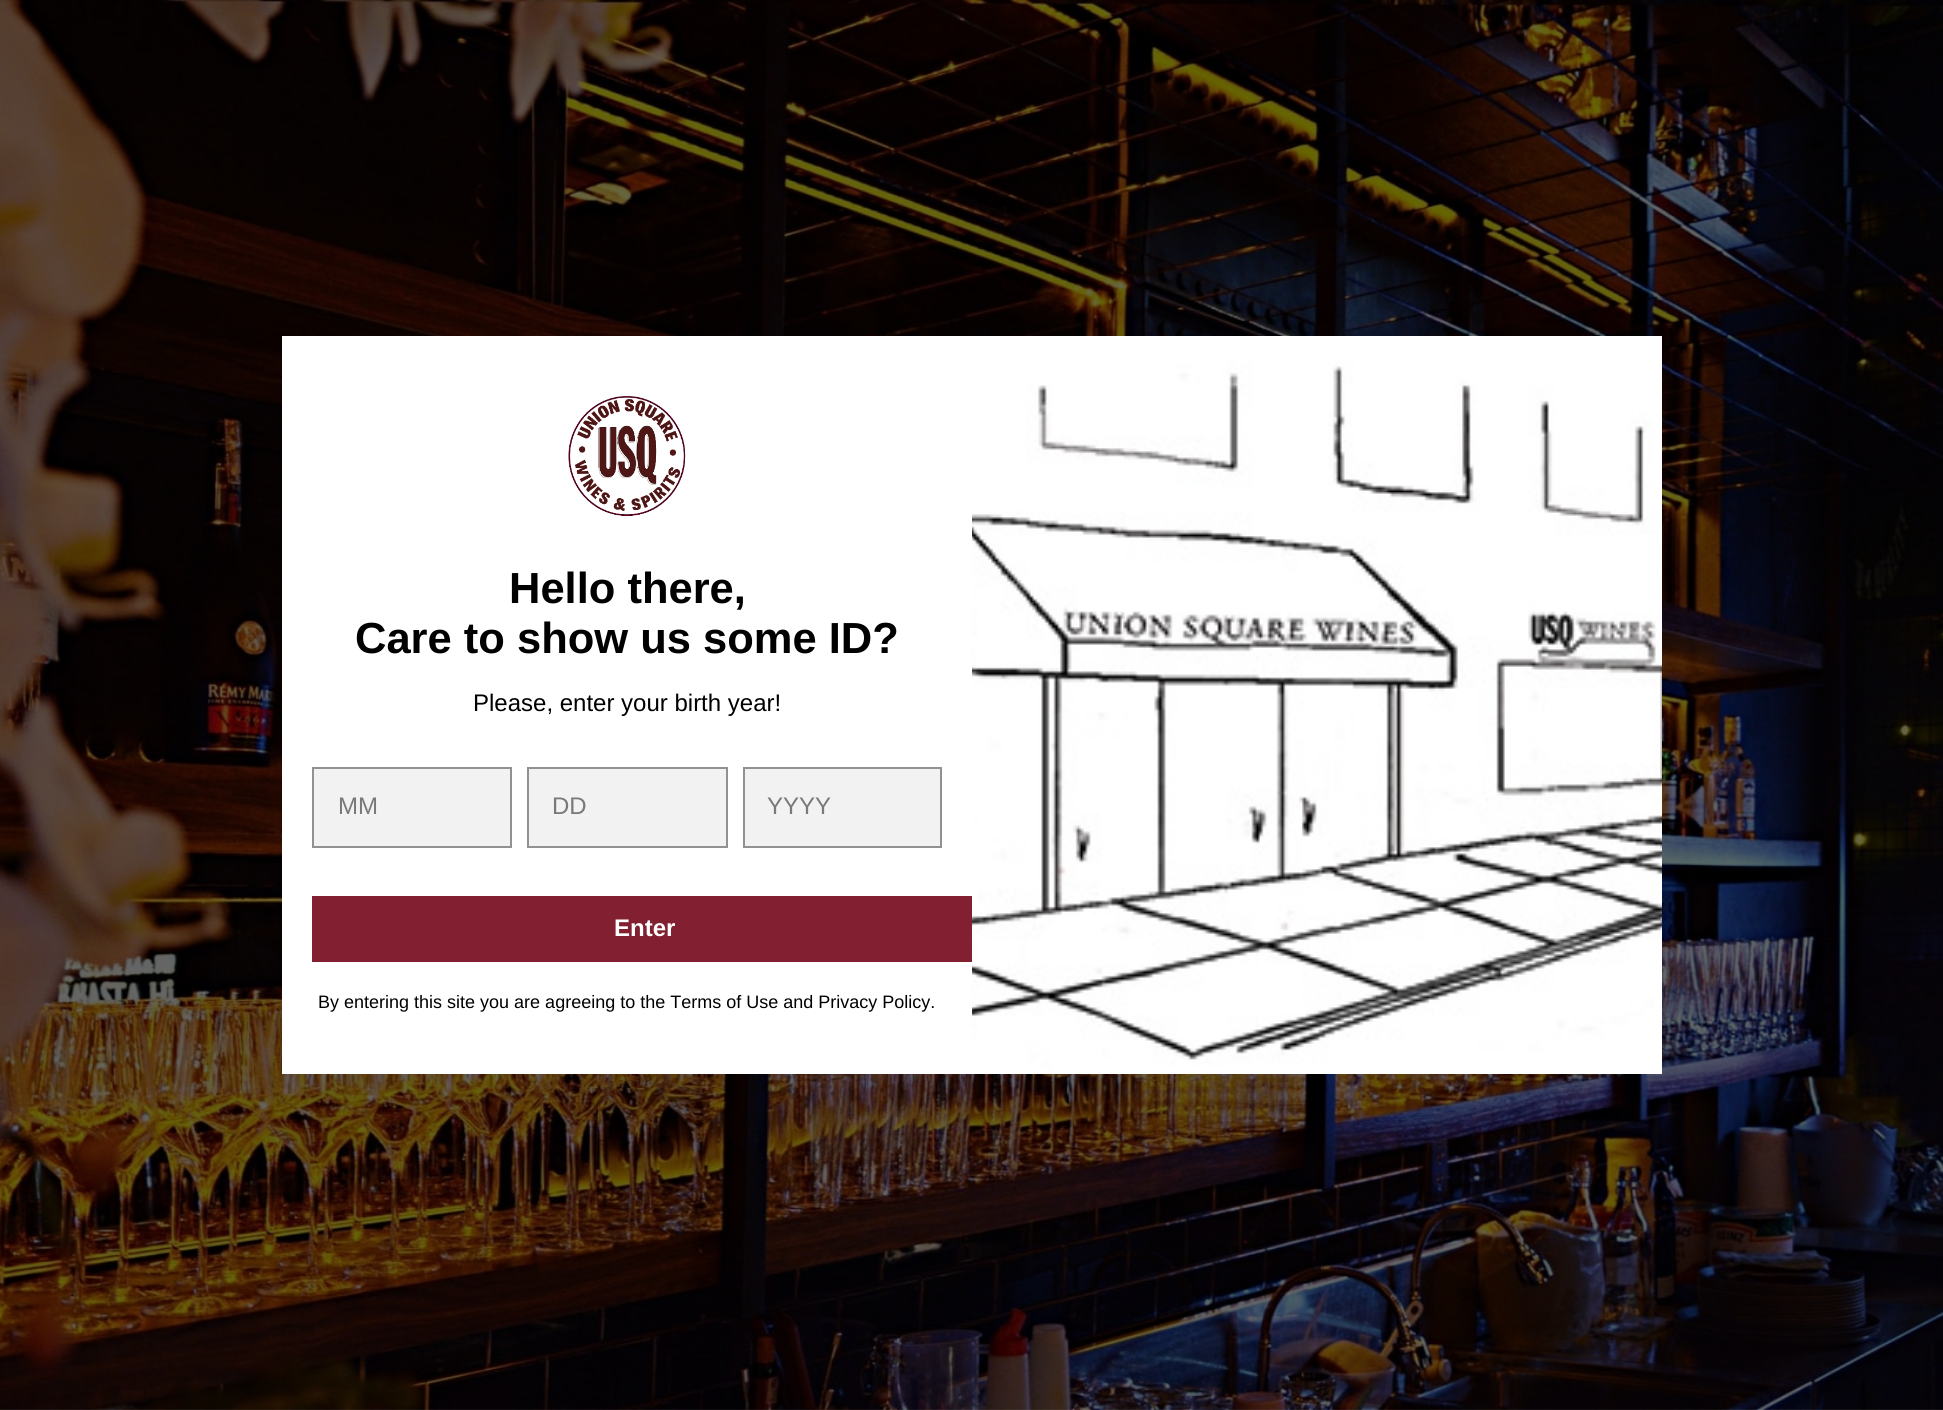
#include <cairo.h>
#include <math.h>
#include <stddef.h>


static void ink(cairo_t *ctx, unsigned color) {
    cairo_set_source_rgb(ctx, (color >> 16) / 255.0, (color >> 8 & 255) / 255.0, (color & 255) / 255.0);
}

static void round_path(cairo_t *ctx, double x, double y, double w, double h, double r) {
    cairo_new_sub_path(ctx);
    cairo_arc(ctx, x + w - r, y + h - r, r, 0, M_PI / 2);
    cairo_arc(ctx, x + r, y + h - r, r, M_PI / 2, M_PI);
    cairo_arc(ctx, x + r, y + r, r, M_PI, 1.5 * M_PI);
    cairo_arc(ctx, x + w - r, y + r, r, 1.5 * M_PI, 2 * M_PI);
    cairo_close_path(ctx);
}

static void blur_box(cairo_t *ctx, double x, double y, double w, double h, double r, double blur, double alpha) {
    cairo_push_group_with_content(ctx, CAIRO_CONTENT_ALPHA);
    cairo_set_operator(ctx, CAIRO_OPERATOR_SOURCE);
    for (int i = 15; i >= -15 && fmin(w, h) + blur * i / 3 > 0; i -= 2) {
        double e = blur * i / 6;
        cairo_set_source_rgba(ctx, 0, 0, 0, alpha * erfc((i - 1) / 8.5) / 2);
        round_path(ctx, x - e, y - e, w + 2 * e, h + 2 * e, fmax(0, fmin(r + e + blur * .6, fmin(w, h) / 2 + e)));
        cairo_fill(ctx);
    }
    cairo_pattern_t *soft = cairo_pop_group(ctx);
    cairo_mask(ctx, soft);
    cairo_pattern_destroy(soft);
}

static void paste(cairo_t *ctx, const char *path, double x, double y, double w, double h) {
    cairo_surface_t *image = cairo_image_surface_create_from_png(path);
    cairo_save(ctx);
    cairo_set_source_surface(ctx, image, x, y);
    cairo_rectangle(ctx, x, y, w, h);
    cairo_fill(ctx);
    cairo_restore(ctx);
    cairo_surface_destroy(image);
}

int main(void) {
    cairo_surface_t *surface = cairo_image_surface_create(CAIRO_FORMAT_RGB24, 1943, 1410);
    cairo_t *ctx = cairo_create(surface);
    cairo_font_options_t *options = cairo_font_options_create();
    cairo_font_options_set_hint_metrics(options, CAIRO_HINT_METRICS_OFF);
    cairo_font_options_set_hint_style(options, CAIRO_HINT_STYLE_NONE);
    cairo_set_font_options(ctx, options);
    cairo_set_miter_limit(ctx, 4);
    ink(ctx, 0xFFFFFF);
    cairo_paint(ctx);
    ink(ctx, 0x000000);
    blur_box(ctx, 228, 18, 1488, 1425, 0, 11, 0.2);
    paste(ctx, "media/1.png", 0, 0, 1943, 1410);
    ink(ctx, 0xFFFFFF);
    cairo_rectangle(ctx, 282, 336, 690, 738);
    cairo_fill(ctx);
    paste(ctx, "media/2.png", 568, 396, 118, 120);
    cairo_select_font_face(ctx, "Liberation Sans", CAIRO_FONT_SLANT_NORMAL, CAIRO_FONT_WEIGHT_BOLD);
    cairo_set_font_size(ctx, 43.5);
    ink(ctx, 0x000000);
    cairo_move_to(ctx, 509, 603);
    cairo_show_text(ctx, "Hello there,");
    cairo_move_to(ctx, 355, 653);
    cairo_show_text(ctx, "Care to show us some ID?");
    cairo_select_font_face(ctx, "Liberation Sans", CAIRO_FONT_SLANT_NORMAL, CAIRO_FONT_WEIGHT_NORMAL);
    cairo_set_font_size(ctx, 24);
    cairo_move_to(ctx, 473, 711);
    cairo_show_text(ctx, "Please, enter your birth year!");
    ink(ctx, 0xF2F2F2);
    cairo_rectangle(ctx, 313, 768, 198, 79);
    cairo_fill_preserve(ctx);
    ink(ctx, 0x919191);
    cairo_stroke(ctx);
    ink(ctx, 0x797979);
    cairo_move_to(ctx, 338, 814);
    cairo_show_text(ctx, "MM");
    ink(ctx, 0xF2F2F2);
    cairo_rectangle(ctx, 528, 768, 199, 79);
    cairo_fill_preserve(ctx);
    ink(ctx, 0x919191);
    cairo_stroke(ctx);
    ink(ctx, 0x797979);
    cairo_move_to(ctx, 552, 814);
    cairo_show_text(ctx, "DD");
    ink(ctx, 0xF2F2F2);
    cairo_rectangle(ctx, 744, 768, 197, 79);
    cairo_fill_preserve(ctx);
    ink(ctx, 0x919191);
    cairo_stroke(ctx);
    ink(ctx, 0x797979);
    cairo_move_to(ctx, 767, 814);
    cairo_show_text(ctx, "YYYY");
    ink(ctx, 0x821F31);
    cairo_rectangle(ctx, 312, 896, 660, 66);
    cairo_fill(ctx);
    cairo_select_font_face(ctx, "Liberation Sans", CAIRO_FONT_SLANT_NORMAL, CAIRO_FONT_WEIGHT_BOLD);
    ink(ctx, 0xFFFFFF);
    cairo_move_to(ctx, 614, 936);
    cairo_show_text(ctx, "Enter");
    cairo_select_font_face(ctx, "Liberation Sans", CAIRO_FONT_SLANT_NORMAL, CAIRO_FONT_WEIGHT_NORMAL);
    cairo_set_font_size(ctx, 18);
    ink(ctx, 0x000000);
    cairo_move_to(ctx, 318, 1008);
    cairo_show_text(ctx, "By entering this site you are agreeing to the Terms of Use and Privacy Policy.");
    paste(ctx, "media/3.png", 972, 336, 690, 738);
    cairo_surface_write_to_png(surface, "image.png");
    cairo_font_options_destroy(options);
    cairo_destroy(ctx);
    cairo_surface_destroy(surface);
    return 0;
}
